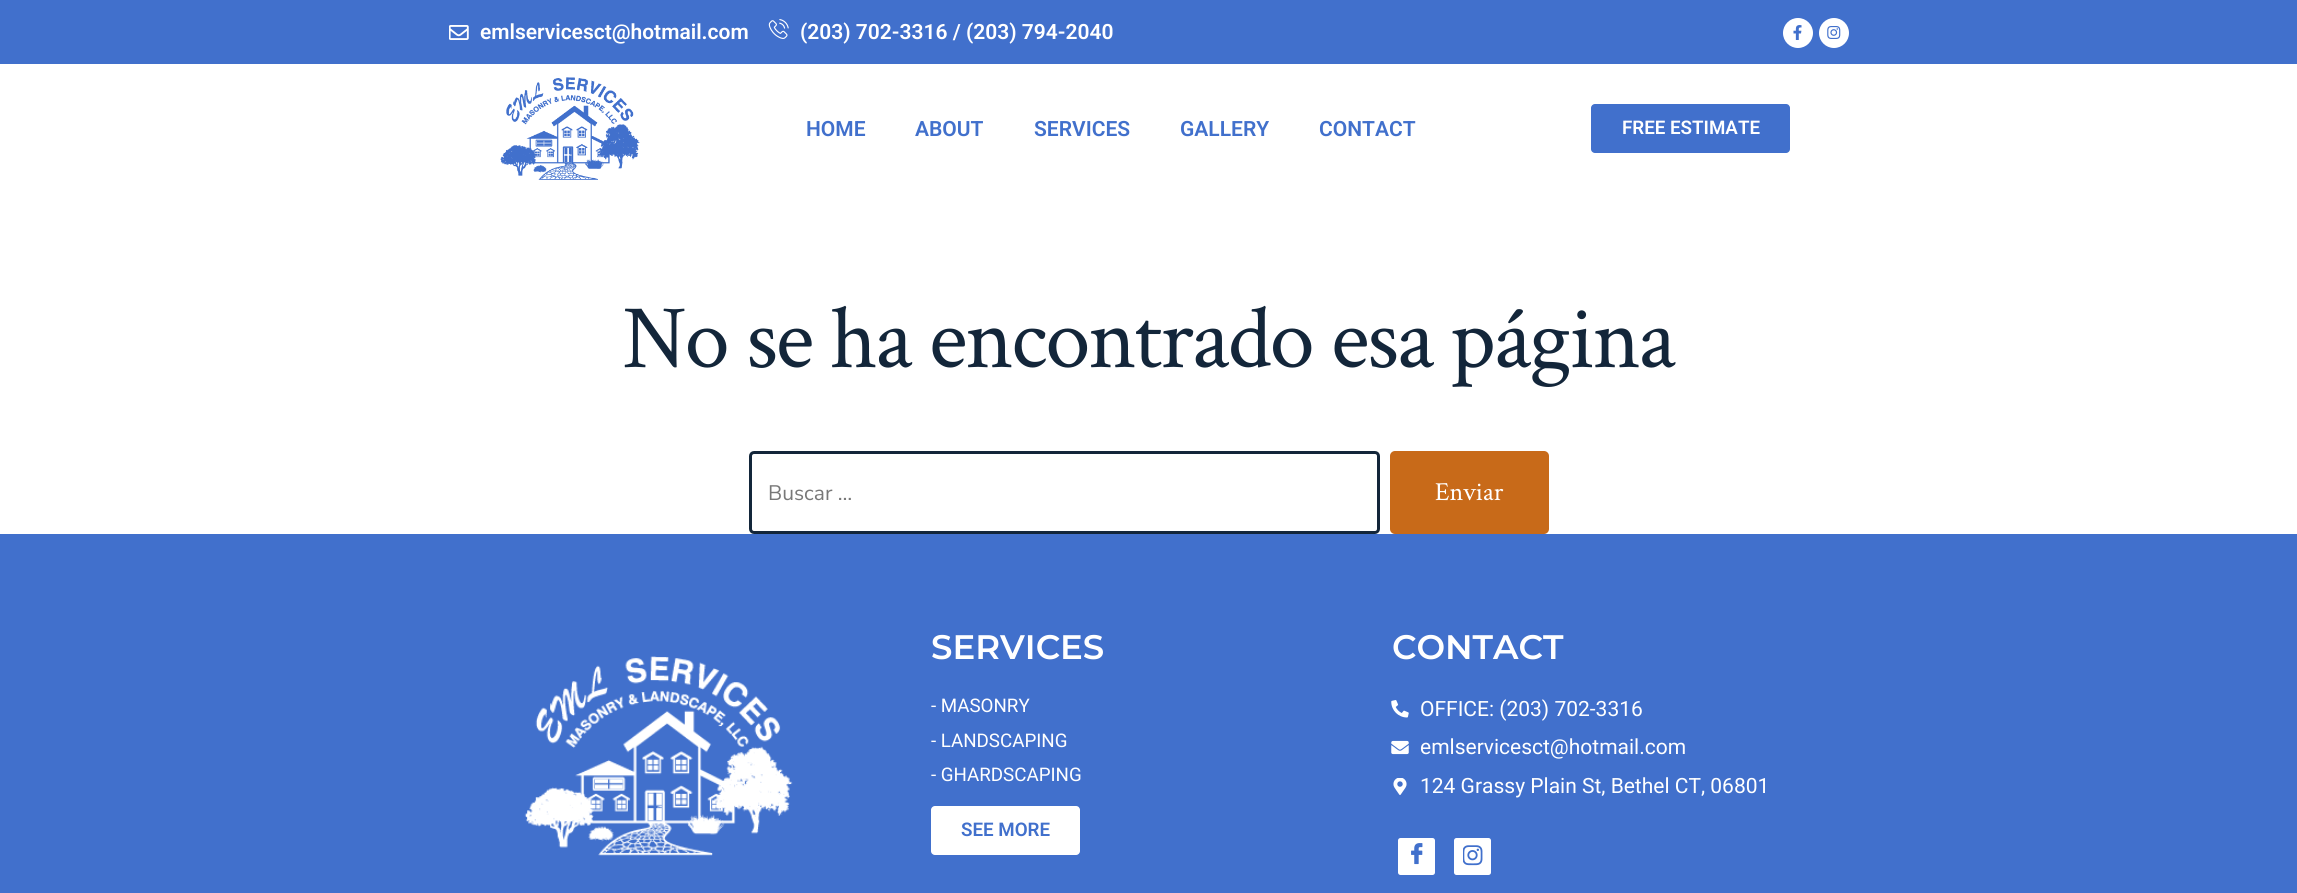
#include <cairo.h>
#include <math.h>
#include <stddef.h>

typedef struct { double x, y; const char *s; } line_t;

static void ink(cairo_t *ctx, unsigned color) {
    cairo_set_source_rgb(ctx, (color >> 16) / 255.0, (color >> 8 & 255) / 255.0, (color & 255) / 255.0);
}

static void write_spaced(cairo_t *ctx, double x, double y, const char *s, double letter, double word) {
    cairo_move_to(ctx, x, y);
    while (*s) {
        char ch[5] = {0};
        int n = 0;
        do ch[n++] = *s++; while ((*s & 0xC0) == 0x80);
        cairo_show_text(ctx, ch);
        cairo_rel_move_to(ctx, letter + word * (*ch == ' '), 0);
    }
}

static void round_path(cairo_t *ctx, double x, double y, double w, double h, double r) {
    cairo_new_sub_path(ctx);
    cairo_arc(ctx, x + w - r, y + h - r, r, 0, M_PI / 2);
    cairo_arc(ctx, x + r, y + h - r, r, M_PI / 2, M_PI);
    cairo_arc(ctx, x + r, y + r, r, M_PI, 1.5 * M_PI);
    cairo_arc(ctx, x + w - r, y + r, r, 1.5 * M_PI, 2 * M_PI);
    cairo_close_path(ctx);
}

static void paste(cairo_t *ctx, const char *path, double x, double y, double w, double h) {
    cairo_surface_t *image = cairo_image_surface_create_from_png(path);
    cairo_save(ctx);
    cairo_set_source_surface(ctx, image, x, y);
    cairo_rectangle(ctx, x, y, w, h);
    cairo_fill(ctx);
    cairo_restore(ctx);
    cairo_surface_destroy(image);
}

int main(void) {
    cairo_surface_t *surface = cairo_image_surface_create(CAIRO_FORMAT_RGB24, 2297, 893);
    cairo_t *ctx = cairo_create(surface);
    cairo_font_options_t *options = cairo_font_options_create();
    cairo_font_options_set_hint_metrics(options, CAIRO_HINT_METRICS_OFF);
    cairo_font_options_set_hint_style(options, CAIRO_HINT_STYLE_NONE);
    cairo_set_font_options(ctx, options);
    cairo_set_miter_limit(ctx, 4);
    ink(ctx, 0xFFFFFF);
    cairo_paint(ctx);
    ink(ctx, 0x4170CC);
    cairo_rectangle(ctx, 0, 0, 2297, 64);
    cairo_fill(ctx);
    paste(ctx, "media/1.png", 449, 25, 20, 15);
    cairo_select_font_face(ctx, "Roboto SemiBold", CAIRO_FONT_SLANT_NORMAL, CAIRO_FONT_WEIGHT_NORMAL);
    cairo_set_font_size(ctx, 21);
    ink(ctx, 0xFFFFFF);
    cairo_move_to(ctx, 480, 39);
    cairo_show_text(ctx, "emlservicesct@hotmail.com");
    paste(ctx, "media/2.png", 768, 19, 21, 20);
    cairo_move_to(ctx, 800, 39);
    cairo_show_text(ctx, "(203) 702-3316 / (203) 794-2040");
    cairo_new_path(ctx);
    cairo_arc(ctx, 1798, 33, 15, 0, 2 * M_PI);
    cairo_fill(ctx);
    paste(ctx, "media/3.png", 1793, 25, 9, 15);
    cairo_arc(ctx, 1834, 33, 15, 0, 2 * M_PI);
    cairo_fill(ctx);
    paste(ctx, "media/4.png", 1827, 26, 14, 13);
    paste(ctx, "media/5.png", 500, 77, 140, 103);
    ink(ctx, 0x4170CC);
    {
        static const line_t items[] = {
            {806, 136, "HOME"},
            {915, 136, "ABOUT"},
            {1034, 136, "SERVICES"},
            {1180, 136, "GALLERY"},
            {1319, 136, "CONTACT"},
        };
        for (size_t i = 0; i < sizeof items / sizeof *items; i++) {
            cairo_move_to(ctx, items[i].x, items[i].y);
            cairo_show_text(ctx, items[i].s);
        }
    }
    round_path(ctx, 1591, 104, 199, 49, 4);
    cairo_fill(ctx);
    cairo_set_font_size(ctx, 18.75);
    ink(ctx, 0xFFFFFF);
    cairo_move_to(ctx, 1622, 134);
    cairo_show_text(ctx, "FREE ESTIMATE");
    cairo_select_font_face(ctx, "Crimson Text", CAIRO_FONT_SLANT_NORMAL, CAIRO_FONT_WEIGHT_NORMAL);
    cairo_set_font_size(ctx, 90.25);
    ink(ctx, 0x13263A);
    write_spaced(ctx, 623, 367, "No se ha encontrado esa página", -1.8, 0);
    round_path(ctx, 750.5, 452.5, 628, 80, 3.5);
    cairo_set_line_width(ctx, 3);
    cairo_stroke(ctx);
    cairo_select_font_face(ctx, "Nunito Sans", CAIRO_FONT_SLANT_NORMAL, CAIRO_FONT_WEIGHT_NORMAL);
    cairo_set_font_size(ctx, 21);
    ink(ctx, 0x787878);
    cairo_move_to(ctx, 768, 500);
    cairo_show_text(ctx, "Buscar …");
    ink(ctx, 0xC86A19);
    round_path(ctx, 1390, 451, 159, 83, 5);
    cairo_fill(ctx);
    cairo_select_font_face(ctx, "Crimson Text", CAIRO_FONT_SLANT_NORMAL, CAIRO_FONT_WEIGHT_NORMAL);
    cairo_set_font_size(ctx, 26);
    ink(ctx, 0xFFFFFF);
    cairo_move_to(ctx, 1435, 500);
    cairo_show_text(ctx, "Enviar");
    ink(ctx, 0x4170CC);
    cairo_rectangle(ctx, 0, 534, 2297, 359);
    cairo_fill(ctx);
    paste(ctx, "media/6.png", 524, 656, 269, 200);
    cairo_select_font_face(ctx, "Montserrat SemiBold", CAIRO_FONT_SLANT_NORMAL, CAIRO_FONT_WEIGHT_NORMAL);
    cairo_set_font_size(ctx, 34);
    ink(ctx, 0xFFFFFF);
    cairo_move_to(ctx, 931, 659);
    cairo_show_text(ctx, "SERVICES");
    cairo_select_font_face(ctx, "Roboto", CAIRO_FONT_SLANT_NORMAL, CAIRO_FONT_WEIGHT_NORMAL);
    cairo_set_font_size(ctx, 18.75);
    {
        static const line_t items[] = {
            {931, 712, "- MASONRY"},
            {931, 747, "- LANDSCAPING"},
            {931, 781, "- GHARDSCAPING"},
        };
        for (size_t i = 0; i < sizeof items / sizeof *items; i++) {
            cairo_move_to(ctx, items[i].x, items[i].y);
            cairo_show_text(ctx, items[i].s);
        }
    }
    round_path(ctx, 931, 806, 149, 49, 4);
    cairo_fill(ctx);
    cairo_select_font_face(ctx, "Roboto SemiBold", CAIRO_FONT_SLANT_NORMAL, CAIRO_FONT_WEIGHT_NORMAL);
    ink(ctx, 0x4170CC);
    cairo_move_to(ctx, 961, 836);
    cairo_show_text(ctx, "SEE MORE");
    cairo_select_font_face(ctx, "Montserrat SemiBold", CAIRO_FONT_SLANT_NORMAL, CAIRO_FONT_WEIGHT_NORMAL);
    cairo_set_font_size(ctx, 34);
    ink(ctx, 0xFFFFFF);
    cairo_move_to(ctx, 1392, 659);
    cairo_show_text(ctx, "CONTACT");
    paste(ctx, "media/7.png", 1391, 700, 18, 18);
    cairo_select_font_face(ctx, "Roboto", CAIRO_FONT_SLANT_NORMAL, CAIRO_FONT_WEIGHT_NORMAL);
    cairo_set_font_size(ctx, 21);
    cairo_move_to(ctx, 1420, 716);
    cairo_show_text(ctx, "OFFICE: (203) 702-3316");
    paste(ctx, "media/8.png", 1391, 740, 18, 15);
    cairo_move_to(ctx, 1420, 754);
    cairo_show_text(ctx, "emlservicesct@hotmail.com");
    paste(ctx, "media/9.png", 1393, 778, 14, 17);
    cairo_move_to(ctx, 1420, 793);
    cairo_show_text(ctx, "124 Grassy Plain St, Bethel CT, 06801");
    round_path(ctx, 1398, 838, 37, 37, 2.5);
    cairo_fill(ctx);
    paste(ctx, "media/10.png", 1411, 843, 12, 22);
    round_path(ctx, 1454, 838, 37, 37, 2.5);
    cairo_fill(ctx);
    paste(ctx, "media/11.png", 1463, 845, 20, 21);
    cairo_surface_write_to_png(surface, "image.png");
    cairo_font_options_destroy(options);
    cairo_destroy(ctx);
    cairo_surface_destroy(surface);
    return 0;
}
